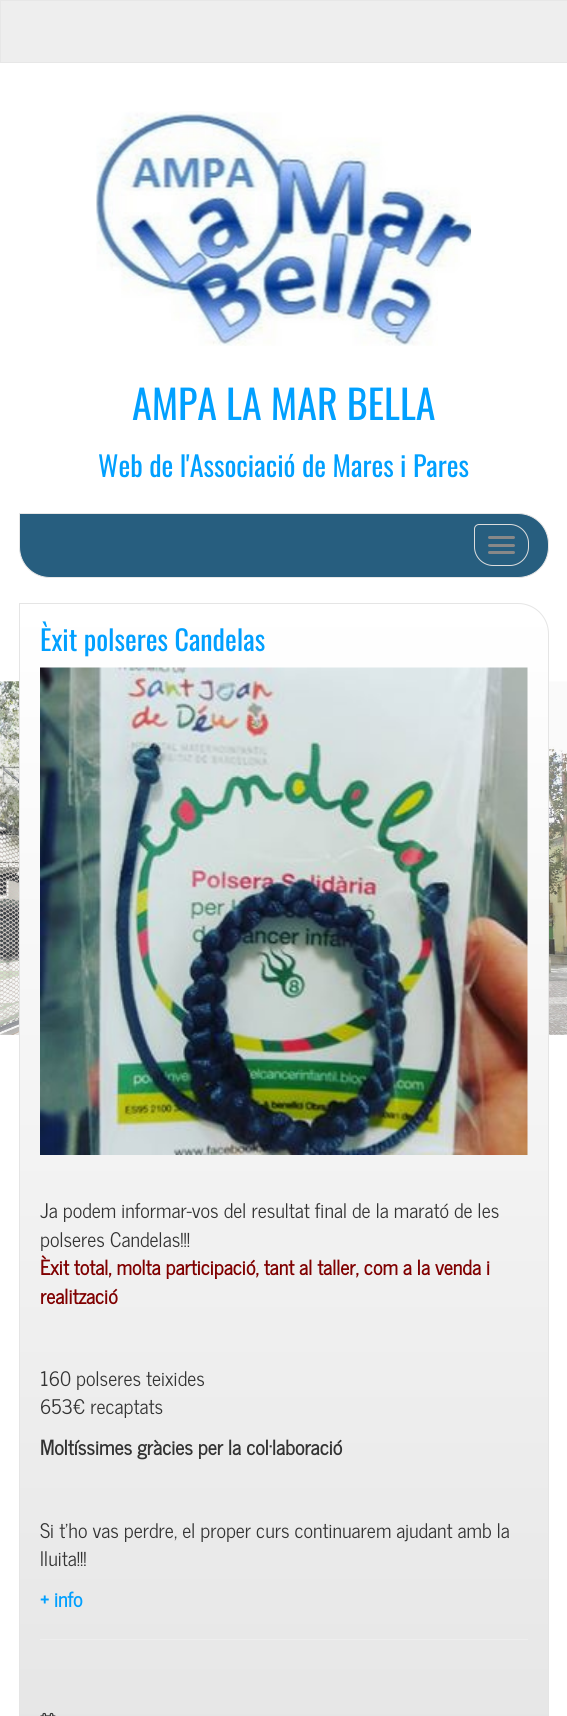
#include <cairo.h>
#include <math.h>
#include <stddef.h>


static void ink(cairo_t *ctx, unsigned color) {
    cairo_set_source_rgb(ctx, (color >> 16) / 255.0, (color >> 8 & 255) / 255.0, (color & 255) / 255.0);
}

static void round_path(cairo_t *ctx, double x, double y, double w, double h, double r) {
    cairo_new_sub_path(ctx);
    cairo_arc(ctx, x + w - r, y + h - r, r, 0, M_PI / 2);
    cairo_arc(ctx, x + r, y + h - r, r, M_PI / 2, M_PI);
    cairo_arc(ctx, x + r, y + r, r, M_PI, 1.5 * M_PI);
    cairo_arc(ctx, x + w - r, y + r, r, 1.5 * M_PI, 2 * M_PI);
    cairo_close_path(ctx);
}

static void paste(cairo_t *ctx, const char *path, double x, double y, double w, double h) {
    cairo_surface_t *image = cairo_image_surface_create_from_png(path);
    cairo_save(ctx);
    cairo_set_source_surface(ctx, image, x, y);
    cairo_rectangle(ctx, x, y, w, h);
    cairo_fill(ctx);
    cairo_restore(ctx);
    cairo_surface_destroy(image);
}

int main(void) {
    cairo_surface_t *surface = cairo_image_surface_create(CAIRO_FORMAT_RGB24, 567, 1716);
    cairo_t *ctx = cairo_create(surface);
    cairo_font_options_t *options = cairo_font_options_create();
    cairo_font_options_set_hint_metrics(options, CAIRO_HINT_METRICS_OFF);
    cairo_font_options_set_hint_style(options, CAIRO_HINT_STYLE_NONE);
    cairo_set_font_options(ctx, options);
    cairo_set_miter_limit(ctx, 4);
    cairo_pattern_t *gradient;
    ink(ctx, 0xFFFFFF);
    cairo_paint(ctx);
    paste(ctx, "media/1.png", 0, 681, 567, 354);
    ink(ctx, 0xEEEEEE);
    cairo_rectangle(ctx, 0.5, 0.5, 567, 62);
    cairo_fill_preserve(ctx);
    ink(ctx, 0xE7E7E7);
    cairo_set_line_width(ctx, 1);
    cairo_stroke(ctx);
    paste(ctx, "media/2.png", 96, 111, 376, 235);
    cairo_select_font_face(ctx, "Oswald", CAIRO_FONT_SLANT_NORMAL, CAIRO_FONT_WEIGHT_NORMAL);
    cairo_set_font_size(ctx, 40);
    ink(ctx, 0x01A0FF);
    cairo_move_to(ctx, 132, 420);
    cairo_show_text(ctx, "AMPA LA MAR BELLA");
    cairo_set_font_size(ctx, 28);
    cairo_move_to(ctx, 98, 477);
    cairo_show_text(ctx, "Web de l'Associació de Mares i Pares");
    ink(ctx, 0x275E7F);
    cairo_new_path(ctx);
    cairo_move_to(ctx, 19.5, 513.5);
    cairo_line_to(ctx, 518, 513.5);
    cairo_curve_to(ctx, 535, 513.5, 548.5, 527, 548.5, 544);
    cairo_line_to(ctx, 548.5, 547);
    cairo_curve_to(ctx, 548.5, 564, 535, 577.5, 518, 577.5);
    cairo_line_to(ctx, 50, 577.5);
    cairo_curve_to(ctx, 33, 577.5, 19.5, 564, 19.5, 547);
    cairo_close_path(ctx);
    cairo_fill_preserve(ctx);
    ink(ctx, 0xE7E7E7);
    cairo_stroke(ctx);
    cairo_new_path(ctx);
    cairo_move_to(ctx, 479, 524.5);
    cairo_line_to(ctx, 510, 524.5);
    cairo_curve_to(ctx, 520, 524.5, 528.5, 533, 528.5, 543);
    cairo_line_to(ctx, 528.5, 547);
    cairo_curve_to(ctx, 528.5, 557, 520, 565.5, 510, 565.5);
    cairo_line_to(ctx, 493, 565.5);
    cairo_curve_to(ctx, 483, 565.5, 474.5, 557, 474.5, 547);
    cairo_line_to(ctx, 474.5, 529);
    cairo_curve_to(ctx, 474.5, 526.5, 476.5, 524.5, 479, 524.5);
    cairo_close_path(ctx);
    ink(ctx, 0xDDDDDD);
    cairo_stroke(ctx);
    ink(ctx, 0x888888);
    round_path(ctx, 488, 536, 27, 3, 1.5);
    cairo_fill(ctx);
    round_path(ctx, 488, 544, 27, 3, 1.5);
    cairo_fill(ctx);
    round_path(ctx, 488, 551, 27, 3, 1.5);
    cairo_fill(ctx);
    cairo_save(ctx);
    cairo_new_path(ctx);
    cairo_move_to(ctx, 19, 603);
    cairo_line_to(ctx, 518, 603);
    cairo_curve_to(ctx, 535, 603, 549, 617, 549, 634);
    cairo_line_to(ctx, 549, 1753);
    cairo_curve_to(ctx, 549, 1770, 535, 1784, 518, 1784);
    cairo_line_to(ctx, 50, 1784);
    cairo_curve_to(ctx, 33, 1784, 19, 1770, 19, 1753);
    cairo_close_path(ctx);
    cairo_clip(ctx);
    gradient = cairo_pattern_create_linear(284, 604, 284, 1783);
    cairo_pattern_add_color_stop_rgba(gradient, 0, 1, 1, 1, 1);
    cairo_pattern_add_color_stop_rgba(gradient, 1, 0.898, 0.898, 0.898, 1);
    cairo_set_source(ctx, gradient);
    cairo_pattern_destroy(gradient);
    cairo_rectangle(ctx, 20, 604, 529, 1112);
    cairo_fill(ctx);
    cairo_restore(ctx);
    cairo_new_path(ctx);
    cairo_move_to(ctx, 19.5, 603.5);
    cairo_line_to(ctx, 518, 603.5);
    cairo_curve_to(ctx, 535, 603.5, 548.5, 617, 548.5, 634);
    cairo_line_to(ctx, 548.5, 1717);
    cairo_curve_to(ctx, 548.5, 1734, 535, 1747.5, 518, 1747.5);
    cairo_line_to(ctx, 50, 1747.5);
    cairo_curve_to(ctx, 33, 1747.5, 19.5, 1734, 19.5, 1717);
    cairo_close_path(ctx);
    ink(ctx, 0xE5E5E5);
    cairo_stroke(ctx);
    ink(ctx, 0x01A0FF);
    cairo_move_to(ctx, 40, 651);
    cairo_show_text(ctx, "Èxit polseres Candelas");
    paste(ctx, "media/3.png", 40, 667, 488, 488);
    cairo_select_font_face(ctx, "News Cycle", CAIRO_FONT_SLANT_NORMAL, CAIRO_FONT_WEIGHT_NORMAL);
    cairo_set_font_size(ctx, 20);
    ink(ctx, 0x333333);
    cairo_move_to(ctx, 40, 1218);
    cairo_show_text(ctx, "Ja podem informar-vos del resultat final de la marató de les");
    cairo_move_to(ctx, 40, 1247);
    cairo_show_text(ctx, "polseres Candelas!!!");
    cairo_select_font_face(ctx, "News Cycle", CAIRO_FONT_SLANT_NORMAL, CAIRO_FONT_WEIGHT_BOLD);
    ink(ctx, 0x800000);
    cairo_move_to(ctx, 40, 1275);
    cairo_show_text(ctx, "Èxit total, molta participació, tant al taller, com a la venda i");
    cairo_move_to(ctx, 40, 1304);
    cairo_show_text(ctx, "realització");
    cairo_select_font_face(ctx, "News Cycle", CAIRO_FONT_SLANT_NORMAL, CAIRO_FONT_WEIGHT_NORMAL);
    ink(ctx, 0x333333);
    cairo_move_to(ctx, 40, 1386);
    cairo_show_text(ctx, "160 polseres teixides");
    cairo_move_to(ctx, 40, 1414);
    cairo_show_text(ctx, "653€ recaptats");
    cairo_select_font_face(ctx, "News Cycle", CAIRO_FONT_SLANT_NORMAL, CAIRO_FONT_WEIGHT_BOLD);
    cairo_move_to(ctx, 40, 1455);
    cairo_show_text(ctx, "Moltíssimes gràcies per la col·laboració");
    cairo_select_font_face(ctx, "News Cycle", CAIRO_FONT_SLANT_NORMAL, CAIRO_FONT_WEIGHT_NORMAL);
    cairo_move_to(ctx, 40, 1538);
    cairo_show_text(ctx, "Si t’ho vas perdre, el proper curs continuarem ajudant amb la");
    cairo_move_to(ctx, 40, 1566);
    cairo_show_text(ctx, "lluita!!!");
    cairo_select_font_face(ctx, "News Cycle", CAIRO_FONT_SLANT_NORMAL, CAIRO_FONT_WEIGHT_BOLD);
    ink(ctx, 0x01A0FF);
    cairo_move_to(ctx, 40, 1607);
    cairo_show_text(ctx, "+ info");
    ink(ctx, 0xEEEEEE);
    cairo_rectangle(ctx, 40, 1639, 488, 1);
    cairo_fill(ctx);
    paste(ctx, "media/4.png", 40, 1712, 16, 4);
    cairo_surface_write_to_png(surface, "image.png");
    cairo_font_options_destroy(options);
    cairo_destroy(ctx);
    cairo_surface_destroy(surface);
    return 0;
}
